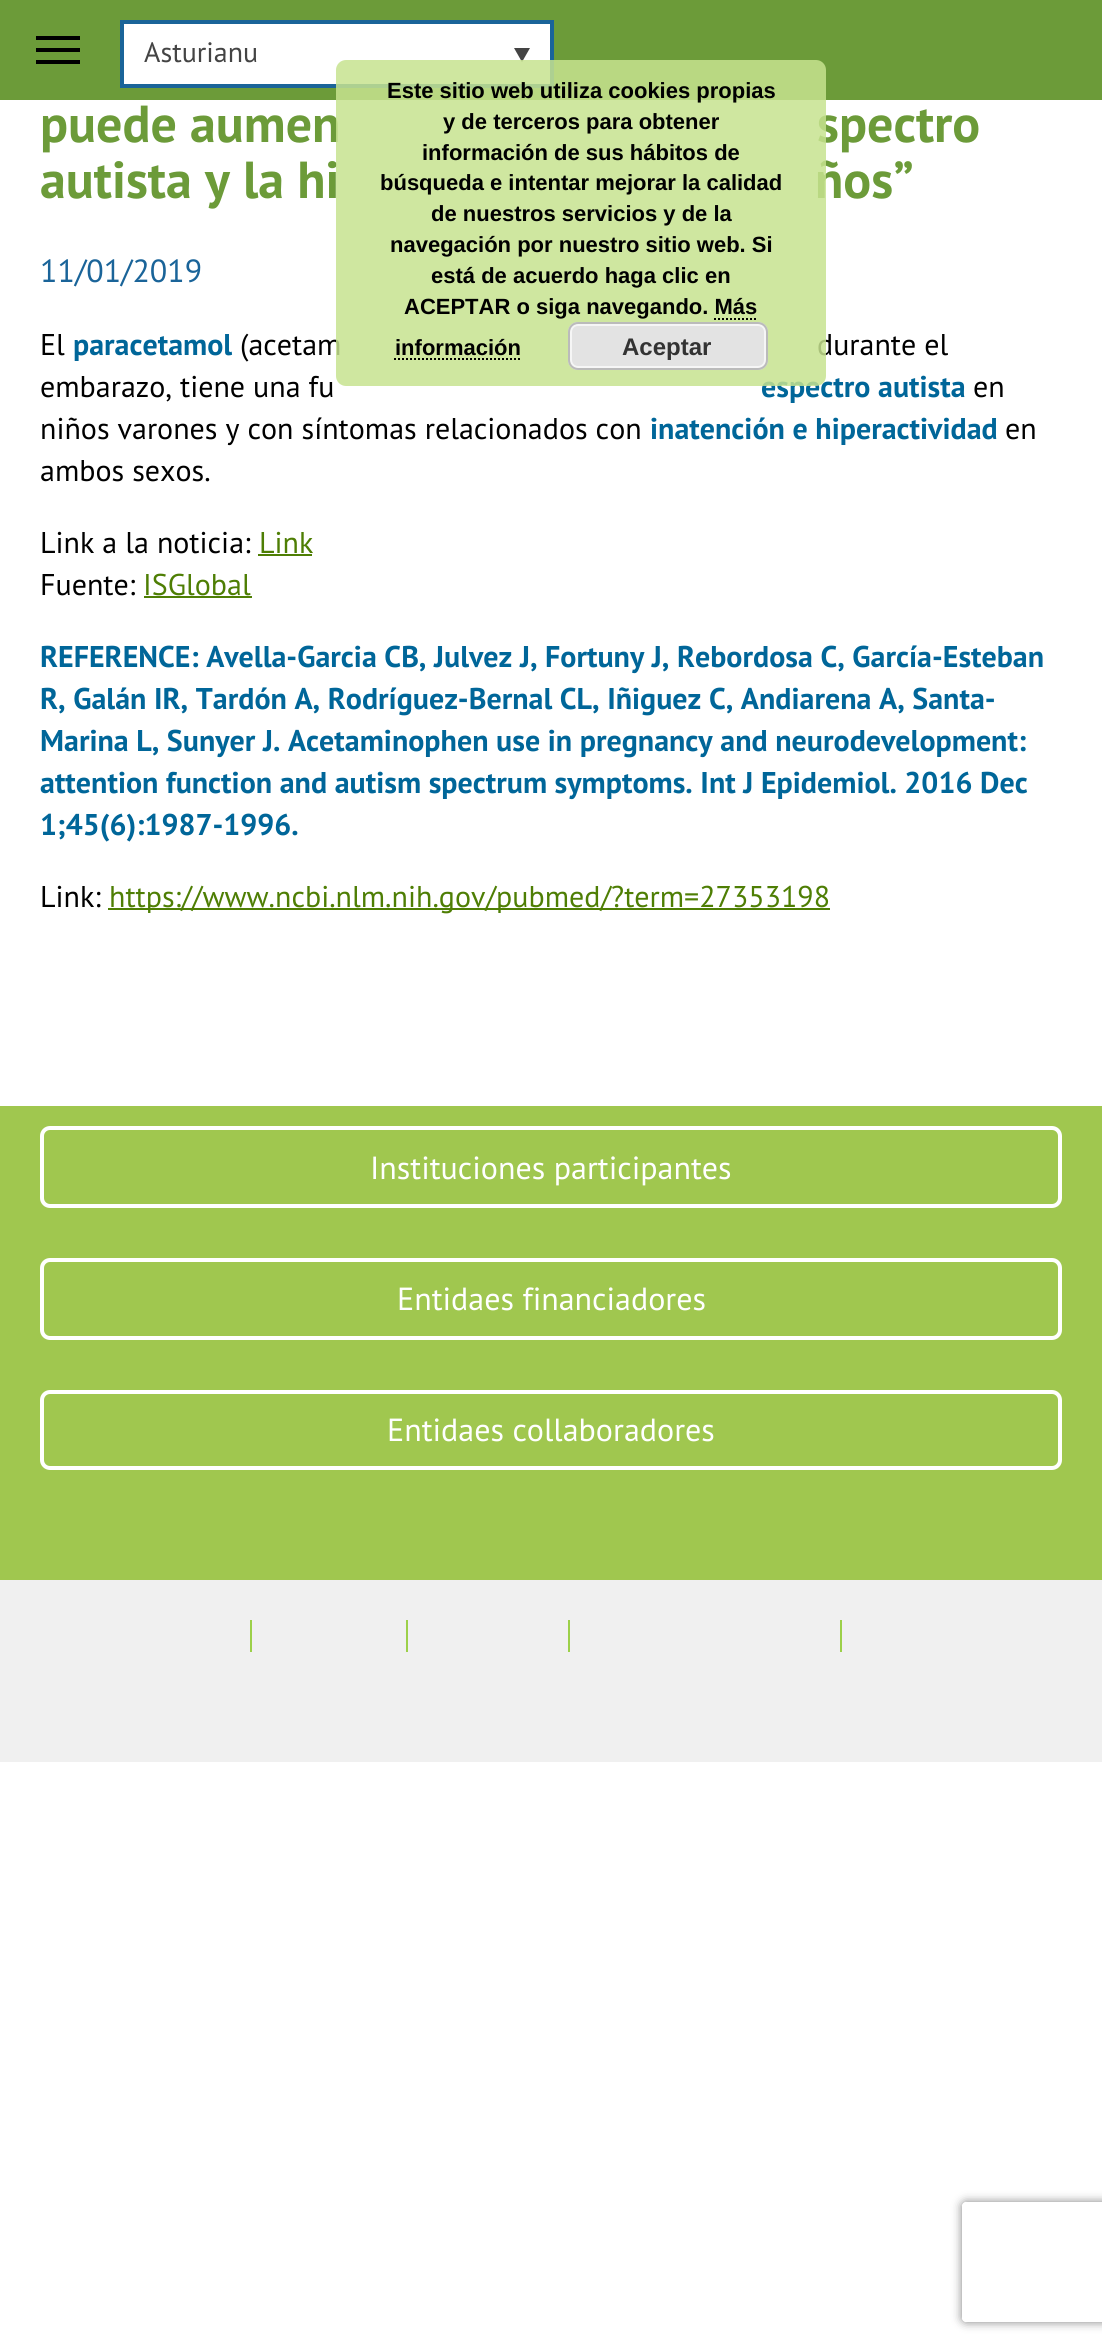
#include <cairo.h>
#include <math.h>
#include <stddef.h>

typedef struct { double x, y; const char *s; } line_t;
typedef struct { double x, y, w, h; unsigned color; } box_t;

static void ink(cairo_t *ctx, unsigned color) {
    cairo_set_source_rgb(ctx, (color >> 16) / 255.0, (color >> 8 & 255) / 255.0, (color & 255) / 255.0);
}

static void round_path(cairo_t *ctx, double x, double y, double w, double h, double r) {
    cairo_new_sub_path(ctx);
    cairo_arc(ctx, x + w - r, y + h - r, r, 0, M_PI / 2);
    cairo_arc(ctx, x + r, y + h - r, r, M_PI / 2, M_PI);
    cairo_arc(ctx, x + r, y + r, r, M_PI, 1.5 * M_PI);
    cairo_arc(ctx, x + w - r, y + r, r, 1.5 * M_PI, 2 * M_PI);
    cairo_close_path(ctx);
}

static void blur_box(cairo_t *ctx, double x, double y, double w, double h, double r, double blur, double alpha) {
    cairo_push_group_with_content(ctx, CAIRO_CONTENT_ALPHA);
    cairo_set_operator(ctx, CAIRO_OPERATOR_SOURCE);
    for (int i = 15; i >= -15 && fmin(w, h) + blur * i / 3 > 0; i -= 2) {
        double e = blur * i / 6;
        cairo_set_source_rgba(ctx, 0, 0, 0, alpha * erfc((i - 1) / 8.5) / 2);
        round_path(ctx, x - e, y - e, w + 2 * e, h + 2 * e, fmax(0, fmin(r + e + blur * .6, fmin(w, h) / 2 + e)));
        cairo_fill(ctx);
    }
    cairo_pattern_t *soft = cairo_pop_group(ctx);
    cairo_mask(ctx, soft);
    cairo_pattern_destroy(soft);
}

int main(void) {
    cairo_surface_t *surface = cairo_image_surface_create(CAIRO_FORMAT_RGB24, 1102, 2350);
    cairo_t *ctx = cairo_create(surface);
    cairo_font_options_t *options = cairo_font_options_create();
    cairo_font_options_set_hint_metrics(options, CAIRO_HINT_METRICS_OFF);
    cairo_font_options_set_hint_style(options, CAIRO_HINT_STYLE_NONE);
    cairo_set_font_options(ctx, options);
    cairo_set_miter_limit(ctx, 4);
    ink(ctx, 0xFFFFFF);
    cairo_paint(ctx);
    {
        static const box_t items[] = {
            {0, 0, 1102, 100, 0x6C9B39},
            {36, 48, 44, 4, 0x000000},
            {36, 36, 44, 4, 0x000000},
            {36, 60, 44, 4, 0x000000},
        };
        for (size_t i = 0; i < sizeof items / sizeof *items; i++) {
            ink(ctx, items[i].color);
            cairo_rectangle(ctx, items[i].x, items[i].y, items[i].w, items[i].h);
            cairo_fill(ctx);
        }
    }
    ink(ctx, 0xFFFFFF);
    cairo_rectangle(ctx, 122, 22, 430, 64);
    cairo_fill_preserve(ctx);
    ink(ctx, 0x1A6499);
    cairo_set_line_width(ctx, 4);
    cairo_stroke(ctx);
    cairo_select_font_face(ctx, "PT Sans", CAIRO_FONT_SLANT_NORMAL, CAIRO_FONT_WEIGHT_NORMAL);
    cairo_set_font_size(ctx, 28);
    ink(ctx, 0x444444);
    cairo_move_to(ctx, 144, 62);
    cairo_show_text(ctx, "Asturianu");
    cairo_new_path(ctx);
    cairo_move_to(ctx, 514, 48);
    cairo_line_to(ctx, 530, 48);
    cairo_line_to(ctx, 522, 62);
    cairo_close_path(ctx);
    cairo_fill(ctx);
    cairo_select_font_face(ctx, "PT Sans", CAIRO_FONT_SLANT_NORMAL, CAIRO_FONT_WEIGHT_BOLD);
    cairo_set_font_size(ctx, 52);
    ink(ctx, 0x6C9B39);
    {
        static const line_t items[] = {
            {40, 142, "puede aumen"},
            {817, 142, "spectro"},
            {40, 198, "autista y la hi"},
            {815, 198, "ños”"},
        };
        for (size_t i = 0; i < sizeof items / sizeof *items; i++) {
            cairo_move_to(ctx, items[i].x, items[i].y);
            cairo_show_text(ctx, items[i].s);
        }
    }
    cairo_select_font_face(ctx, "PT Sans", CAIRO_FONT_SLANT_NORMAL, CAIRO_FONT_WEIGHT_NORMAL);
    cairo_set_font_size(ctx, 32);
    ink(ctx, 0x1A6499);
    cairo_move_to(ctx, 40, 282);
    cairo_show_text(ctx, "11/01/2019");
    cairo_set_font_size(ctx, 30);
    ink(ctx, 0x000000);
    cairo_move_to(ctx, 40, 355);
    cairo_show_text(ctx, "El");
    cairo_select_font_face(ctx, "PT Sans", CAIRO_FONT_SLANT_NORMAL, CAIRO_FONT_WEIGHT_BOLD);
    ink(ctx, 0x006699);
    cairo_move_to(ctx, 73, 355);
    cairo_show_text(ctx, "paracetamol");
    cairo_select_font_face(ctx, "PT Sans", CAIRO_FONT_SLANT_NORMAL, CAIRO_FONT_WEIGHT_NORMAL);
    ink(ctx, 0x000000);
    {
        static const line_t items[] = {
            {240, 355, "(acetam"},
            {817, 355, "durante el"},
            {40, 397, "embarazo, tiene una fu"},
        };
        for (size_t i = 0; i < sizeof items / sizeof *items; i++) {
            cairo_move_to(ctx, items[i].x, items[i].y);
            cairo_show_text(ctx, items[i].s);
        }
    }
    cairo_select_font_face(ctx, "PT Sans", CAIRO_FONT_SLANT_NORMAL, CAIRO_FONT_WEIGHT_BOLD);
    ink(ctx, 0x006699);
    cairo_move_to(ctx, 761, 397);
    cairo_show_text(ctx, "espectro autista");
    cairo_select_font_face(ctx, "PT Sans", CAIRO_FONT_SLANT_NORMAL, CAIRO_FONT_WEIGHT_NORMAL);
    ink(ctx, 0x000000);
    cairo_move_to(ctx, 973, 397);
    cairo_show_text(ctx, "en");
    cairo_move_to(ctx, 40, 439);
    cairo_show_text(ctx, "niños varones y con síntomas relacionados con");
    cairo_select_font_face(ctx, "PT Sans", CAIRO_FONT_SLANT_NORMAL, CAIRO_FONT_WEIGHT_BOLD);
    ink(ctx, 0x006699);
    cairo_move_to(ctx, 650, 439);
    cairo_show_text(ctx, "inatención e hiperactividad");
    cairo_select_font_face(ctx, "PT Sans", CAIRO_FONT_SLANT_NORMAL, CAIRO_FONT_WEIGHT_NORMAL);
    ink(ctx, 0x000000);
    {
        static const line_t items[] = {
            {1005, 439, "en"},
            {40, 481, "ambos sexos."},
            {40, 553, "Link a la noticia:"},
        };
        for (size_t i = 0; i < sizeof items / sizeof *items; i++) {
            cairo_move_to(ctx, items[i].x, items[i].y);
            cairo_show_text(ctx, items[i].s);
        }
    }
    ink(ctx, 0x4E7E04);
    cairo_move_to(ctx, 259, 553);
    cairo_show_text(ctx, "Link");
    cairo_rectangle(ctx, 258, 554, 54, 2);
    cairo_fill(ctx);
    ink(ctx, 0x000000);
    cairo_move_to(ctx, 40, 595);
    cairo_show_text(ctx, "Fuente:");
    ink(ctx, 0x4E7E04);
    cairo_move_to(ctx, 143, 595);
    cairo_show_text(ctx, "ISGlobal");
    cairo_rectangle(ctx, 144, 596, 108, 2);
    cairo_fill(ctx);
    cairo_select_font_face(ctx, "PT Sans", CAIRO_FONT_SLANT_NORMAL, CAIRO_FONT_WEIGHT_BOLD);
    ink(ctx, 0x006699);
    {
        static const line_t items[] = {
            {40, 667, "REFERENCE: Avella-Garcia CB, Julvez J, Fortuny J, Rebordosa C, García-Esteban"},
            {40, 709, "R, Galán IR, Tardón A, Rodríguez-Bernal CL, Iñiguez C, Andiarena A, Santa-"},
            {40, 751, "Marina L, Sunyer J. Acetaminophen use in pregnancy and neurodevelopment:"},
            {40, 793, "attention function and autism spectrum symptoms. Int J Epidemiol. 2016 Dec"},
            {40, 835, "1;45(6):1987-1996."},
        };
        for (size_t i = 0; i < sizeof items / sizeof *items; i++) {
            cairo_move_to(ctx, items[i].x, items[i].y);
            cairo_show_text(ctx, items[i].s);
        }
    }
    cairo_select_font_face(ctx, "PT Sans", CAIRO_FONT_SLANT_NORMAL, CAIRO_FONT_WEIGHT_NORMAL);
    ink(ctx, 0x000000);
    cairo_move_to(ctx, 40, 907);
    cairo_show_text(ctx, "Link:");
    ink(ctx, 0x4E7E04);
    cairo_rectangle(ctx, 108, 908, 722, 2);
    cairo_fill(ctx);
    cairo_move_to(ctx, 109, 907);
    cairo_show_text(ctx, "https://www.ncbi.nlm.nih.gov/pubmed/?term=27353198");
    ink(ctx, 0xA0C74F);
    cairo_rectangle(ctx, 0, 1106, 1102, 474);
    cairo_fill(ctx);
    round_path(ctx, 42, 1128, 1018, 78, 8);
    ink(ctx, 0xFFFFFF);
    cairo_stroke(ctx);
    cairo_set_font_size(ctx, 32);
    cairo_move_to(ctx, 370, 1179);
    cairo_show_text(ctx, "Instituciones participantes");
    round_path(ctx, 42, 1260, 1018, 78, 8);
    cairo_stroke(ctx);
    cairo_move_to(ctx, 397, 1310);
    cairo_show_text(ctx, "Entidaes financiadores");
    round_path(ctx, 42, 1392, 1018, 76, 8);
    cairo_stroke(ctx);
    cairo_move_to(ctx, 387, 1441);
    cairo_show_text(ctx, "Entidaes collaboradores");
    {
        static const box_t items[] = {
            {0, 1580, 1102, 182, 0xF0F0F0},
            {250, 1620, 2, 32, 0x9CD049},
            {406, 1620, 2, 32, 0x9CD049},
            {568, 1620, 2, 32, 0x9CD049},
            {840, 1620, 2, 32, 0x9CD049},
        };
        for (size_t i = 0; i < sizeof items / sizeof *items; i++) {
            ink(ctx, items[i].color);
            cairo_rectangle(ctx, items[i].x, items[i].y, items[i].w, items[i].h);
            cairo_fill(ctx);
        }
    }
    cairo_set_source_rgba(ctx, 0.78, 0.89, 0.561, 0.85);
    round_path(ctx, 336, 60, 490, 326, 10);
    cairo_fill(ctx);
    cairo_select_font_face(ctx, "Liberation Sans", CAIRO_FONT_SLANT_NORMAL, CAIRO_FONT_WEIGHT_BOLD);
    cairo_set_font_size(ctx, 22);
    ink(ctx, 0x000000);
    {
        static const line_t items[] = {
            {387, 98, "Este sitio web utiliza cookies propias"},
            {443, 129, "y de terceros para obtener"},
            {422, 160, "información de sus hábitos de"},
            {380, 190, "búsqueda e intentar mejorar la calidad"},
            {431, 221, "de nuestros servicios y de la"},
            {390, 252, "navegación por nuestro sitio web. Si"},
            {431, 283, "está de acuerdo haga clic en"},
            {404, 314, "ACEPTAR o siga navegando. Más"},
            {395, 355, "información"},
        };
        for (size_t i = 0; i < sizeof items / sizeof *items; i++) {
            cairo_move_to(ctx, items[i].x, items[i].y);
            cairo_show_text(ctx, items[i].s);
        }
    }
    cairo_new_path(ctx);
    cairo_move_to(ctx, 714, 319);
    cairo_line_to(ctx, 758, 319);
    cairo_set_line_width(ctx, 2);
    cairo_set_dash(ctx, (double[]){2, 2}, 2, 0);
    cairo_stroke(ctx);
    cairo_new_path(ctx);
    cairo_move_to(ctx, 394, 359);
    cairo_line_to(ctx, 520, 359);
    cairo_stroke(ctx);
    ink(ctx, 0xE3E3E3);
    round_path(ctx, 568, 322, 200, 48, 10);
    cairo_fill(ctx);
    round_path(ctx, 571, 325, 194, 42, 7);
    ink(ctx, 0xF6F6F6);
    cairo_set_dash(ctx, NULL, 0, 0);
    cairo_stroke(ctx);
    round_path(ctx, 569, 323, 198, 46, 9);
    ink(ctx, 0xBBBBBB);
    cairo_stroke(ctx);
    cairo_set_font_size(ctx, 24);
    ink(ctx, 0x333333);
    cairo_move_to(ctx, 622, 355);
    cairo_show_text(ctx, "Aceptar");
    cairo_save(ctx);
    cairo_set_fill_rule(ctx, CAIRO_FILL_RULE_EVEN_ODD);
    cairo_new_path(ctx);
    cairo_move_to(ctx, 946, 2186);
    cairo_line_to(ctx, 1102, 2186);
    cairo_line_to(ctx, 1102, 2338);
    cairo_line_to(ctx, 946, 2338);
    cairo_close_path(ctx);
    cairo_move_to(ctx, 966, 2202);
    cairo_line_to(ctx, 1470, 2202);
    cairo_curve_to(ctx, 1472, 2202, 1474, 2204, 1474, 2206);
    cairo_line_to(ctx, 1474, 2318);
    cairo_curve_to(ctx, 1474, 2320, 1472, 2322, 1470, 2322);
    cairo_line_to(ctx, 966, 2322);
    cairo_curve_to(ctx, 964, 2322, 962, 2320, 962, 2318);
    cairo_line_to(ctx, 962, 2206);
    cairo_curve_to(ctx, 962, 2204, 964, 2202, 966, 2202);
    cairo_close_path(ctx);
    cairo_clip(ctx);
    ink(ctx, 0x808080);
    blur_box(ctx, 962, 2202, 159, 120, 4, 5, 1);
    cairo_restore(ctx);
    cairo_surface_write_to_png(surface, "image.png");
    cairo_font_options_destroy(options);
    cairo_destroy(ctx);
    cairo_surface_destroy(surface);
    return 0;
}
